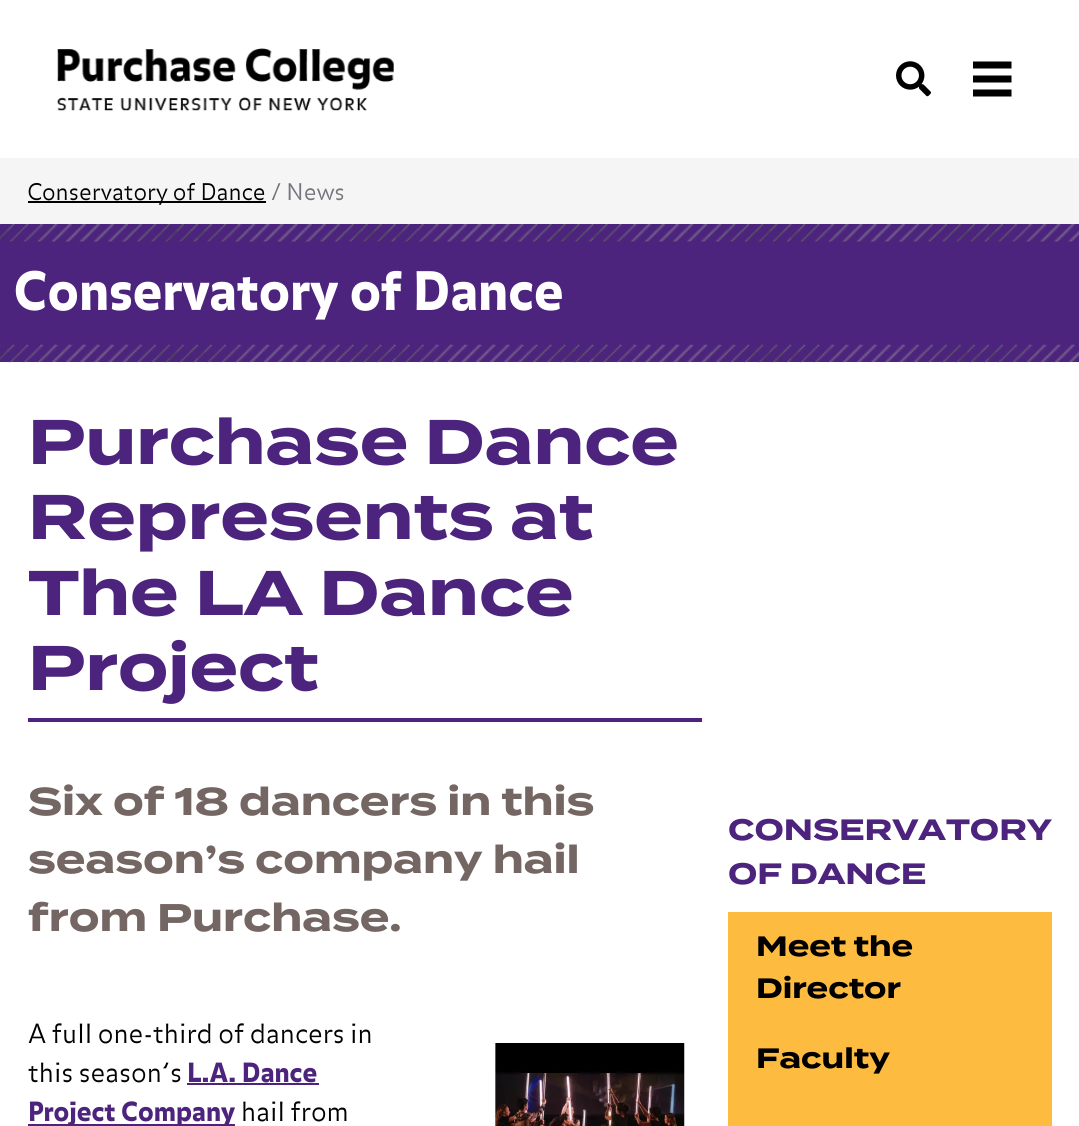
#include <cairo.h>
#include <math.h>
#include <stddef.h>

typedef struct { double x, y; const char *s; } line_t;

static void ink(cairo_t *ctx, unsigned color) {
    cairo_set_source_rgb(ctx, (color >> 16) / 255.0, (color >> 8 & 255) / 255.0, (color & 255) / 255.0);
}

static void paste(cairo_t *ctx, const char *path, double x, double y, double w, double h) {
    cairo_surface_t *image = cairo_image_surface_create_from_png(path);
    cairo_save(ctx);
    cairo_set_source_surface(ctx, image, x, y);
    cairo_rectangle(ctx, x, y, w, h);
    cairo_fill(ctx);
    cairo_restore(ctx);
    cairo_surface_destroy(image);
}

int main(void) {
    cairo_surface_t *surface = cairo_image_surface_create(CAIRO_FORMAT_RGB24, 1079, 1126);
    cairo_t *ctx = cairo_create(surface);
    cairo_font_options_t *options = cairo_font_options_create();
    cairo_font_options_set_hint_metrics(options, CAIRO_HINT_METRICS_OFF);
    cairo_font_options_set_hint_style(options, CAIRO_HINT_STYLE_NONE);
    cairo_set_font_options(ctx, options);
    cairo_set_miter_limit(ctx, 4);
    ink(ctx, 0xFFFFFF);
    cairo_paint(ctx);
    paste(ctx, "media/1.png", 57, 48, 337, 63);
    paste(ctx, "media/2.png", 896, 61, 35, 36);
    cairo_new_path(ctx);
    cairo_move_to(ctx, 973, 65);
    cairo_line_to(ctx, 1011.5, 65);
    cairo_move_to(ctx, 973, 79);
    cairo_line_to(ctx, 1011.5, 79);
    cairo_move_to(ctx, 973, 93);
    cairo_line_to(ctx, 1011.5, 93);
    ink(ctx, 0x000000);
    cairo_set_line_width(ctx, 7);
    cairo_stroke(ctx);
    ink(ctx, 0xF5F5F5);
    cairo_rectangle(ctx, 0, 158, 1079, 66);
    cairo_fill(ctx);
    ink(ctx, 0x000000);
    cairo_rectangle(ctx, 28, 201, 238, 2);
    cairo_fill(ctx);
    cairo_select_font_face(ctx, "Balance", CAIRO_FONT_SLANT_NORMAL, CAIRO_FONT_WEIGHT_NORMAL);
    cairo_set_font_size(ctx, 22.75);
    cairo_move_to(ctx, 27, 200);
    cairo_show_text(ctx, "Conservatory of Dance");
    ink(ctx, 0x78737B);
    cairo_move_to(ctx, 271, 200);
    cairo_show_text(ctx, "/");
    cairo_move_to(ctx, 286, 200);
    cairo_show_text(ctx, "News");
    ink(ctx, 0x4C237D);
    cairo_rectangle(ctx, 0, 224, 1079, 138);
    cairo_fill(ctx);
    paste(ctx, "media/3.png", 0, 224, 1079, 18);
    cairo_select_font_face(ctx, "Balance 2", CAIRO_FONT_SLANT_NORMAL, CAIRO_FONT_WEIGHT_NORMAL);
    cairo_set_font_size(ctx, 52.5);
    ink(ctx, 0xFFFFFF);
    cairo_move_to(ctx, 13, 310);
    cairo_show_text(ctx, "Conservatory of Dance");
    paste(ctx, "media/4.png", 0, 344, 1079, 19);
    ink(ctx, 0x4C237D);
    cairo_rectangle(ctx, 28, 718, 674, 4);
    cairo_fill(ctx);
    cairo_select_font_face(ctx, "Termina", CAIRO_FONT_SLANT_NORMAL, CAIRO_FONT_WEIGHT_BOLD);
    cairo_set_font_size(ctx, 63);
    {
        static const line_t items[] = {
            {28, 464, "Purchase Dance"},
            {28, 539, "Represents at"},
            {28, 615, "The LA Dance"},
            {28, 690, "Project"},
        };
        for (size_t i = 0; i < sizeof items / sizeof *items; i++) {
            cairo_move_to(ctx, items[i].x, items[i].y);
            cairo_show_text(ctx, items[i].s);
        }
    }
    cairo_set_font_size(ctx, 38.5);
    ink(ctx, 0x746663);
    {
        static const line_t items[] = {
            {28, 815, "Six of 18 dancers in this"},
            {28, 873, "season’s company hail"},
            {28, 931, "from Purchase."},
        };
        for (size_t i = 0; i < sizeof items / sizeof *items; i++) {
            cairo_move_to(ctx, items[i].x, items[i].y);
            cairo_show_text(ctx, items[i].s);
        }
    }
    cairo_select_font_face(ctx, "Balance", CAIRO_FONT_SLANT_NORMAL, CAIRO_FONT_WEIGHT_NORMAL);
    cairo_set_font_size(ctx, 26.25);
    ink(ctx, 0x000000);
    cairo_move_to(ctx, 28, 1043);
    cairo_show_text(ctx, "A full one-third of dancers in");
    cairo_move_to(ctx, 28, 1082);
    cairo_show_text(ctx, "this season’s");
    cairo_select_font_face(ctx, "Balance 2", CAIRO_FONT_SLANT_NORMAL, CAIRO_FONT_WEIGHT_NORMAL);
    ink(ctx, 0x4C237D);
    cairo_move_to(ctx, 187, 1082);
    cairo_show_text(ctx, "L.A. Dance");
    cairo_rectangle(ctx, 187, 1083, 132, 2);
    cairo_fill(ctx);
    cairo_rectangle(ctx, 28, 1124, 207, 2);
    cairo_fill(ctx);
    cairo_move_to(ctx, 28, 1121);
    cairo_show_text(ctx, "Project Company");
    cairo_select_font_face(ctx, "Balance", CAIRO_FONT_SLANT_NORMAL, CAIRO_FONT_WEIGHT_NORMAL);
    ink(ctx, 0x000000);
    cairo_move_to(ctx, 241, 1121);
    cairo_show_text(ctx, "hail from");
    paste(ctx, "media/5.png", 495, 1043, 190, 83);
    cairo_select_font_face(ctx, "Termina", CAIRO_FONT_SLANT_NORMAL, CAIRO_FONT_WEIGHT_BOLD);
    cairo_set_font_size(ctx, 29.4);
    ink(ctx, 0x4C237D);
    cairo_move_to(ctx, 728, 840);
    cairo_show_text(ctx, "CONSERVATORY");
    cairo_move_to(ctx, 728, 884);
    cairo_show_text(ctx, "OF DANCE");
    ink(ctx, 0xFDBB40);
    cairo_rectangle(ctx, 728, 912, 324, 214);
    cairo_fill(ctx);
    cairo_set_font_size(ctx, 28);
    ink(ctx, 0x000000);
    {
        static const line_t items[] = {
            {756, 956, "Meet the"},
            {756, 998, "Director"},
            {756, 1068, "Faculty"},
        };
        for (size_t i = 0; i < sizeof items / sizeof *items; i++) {
            cairo_move_to(ctx, items[i].x, items[i].y);
            cairo_show_text(ctx, items[i].s);
        }
    }
    cairo_surface_write_to_png(surface, "image.png");
    cairo_font_options_destroy(options);
    cairo_destroy(ctx);
    cairo_surface_destroy(surface);
    return 0;
}
